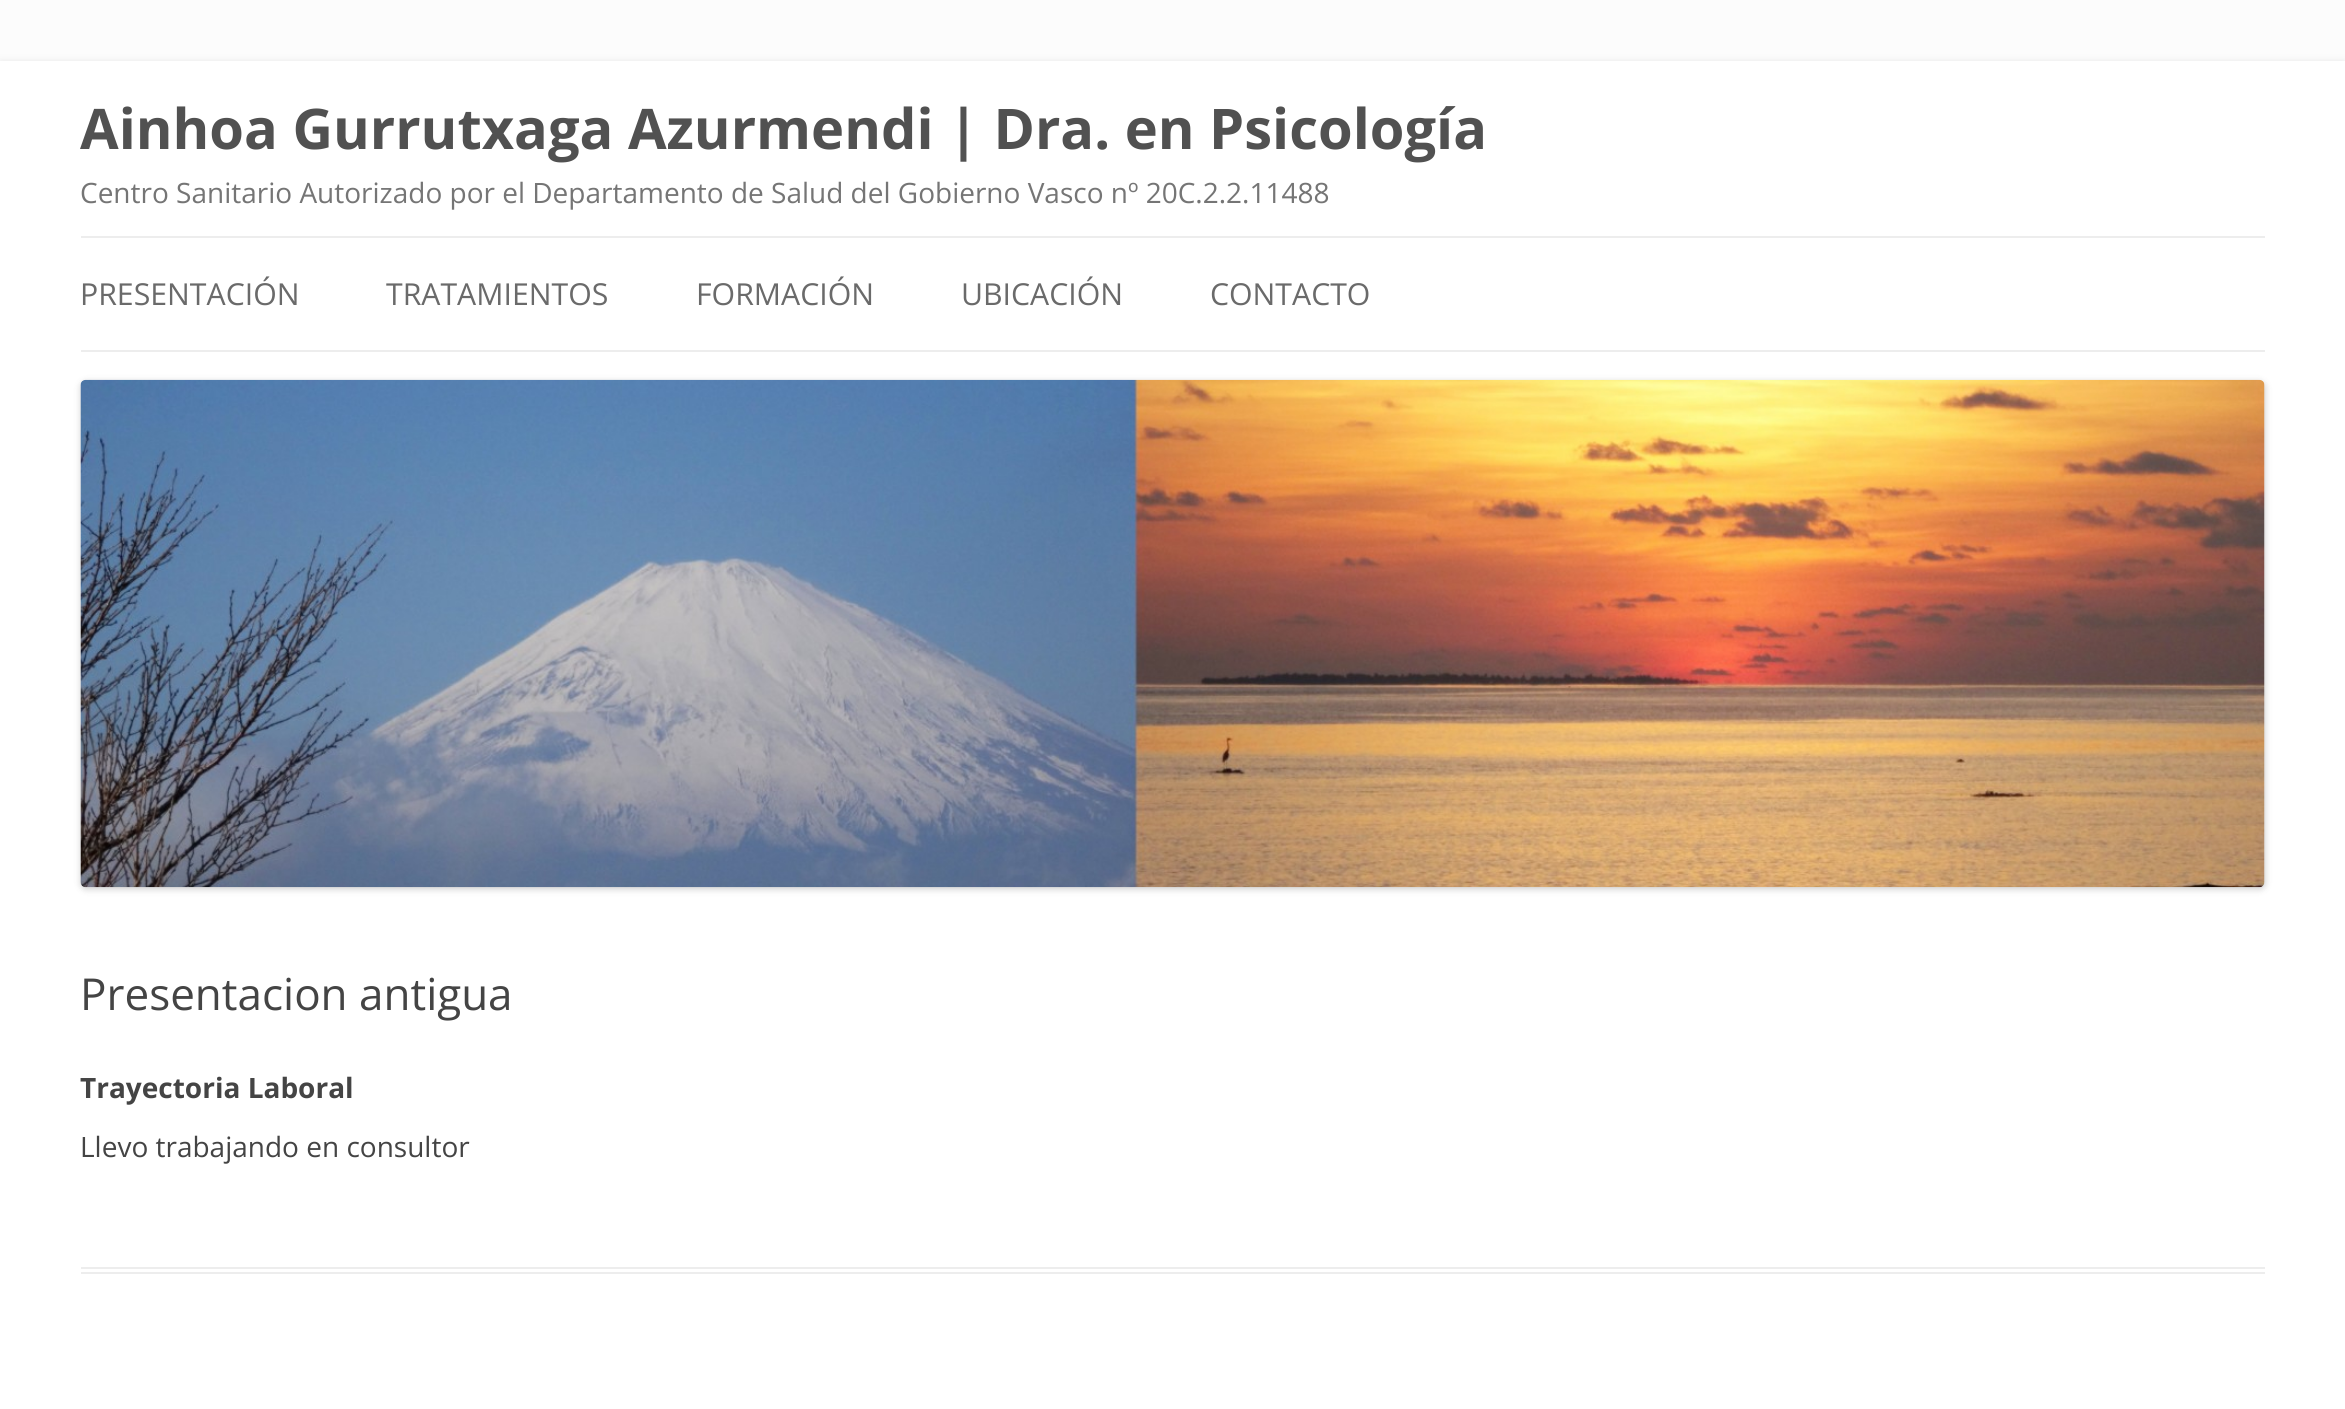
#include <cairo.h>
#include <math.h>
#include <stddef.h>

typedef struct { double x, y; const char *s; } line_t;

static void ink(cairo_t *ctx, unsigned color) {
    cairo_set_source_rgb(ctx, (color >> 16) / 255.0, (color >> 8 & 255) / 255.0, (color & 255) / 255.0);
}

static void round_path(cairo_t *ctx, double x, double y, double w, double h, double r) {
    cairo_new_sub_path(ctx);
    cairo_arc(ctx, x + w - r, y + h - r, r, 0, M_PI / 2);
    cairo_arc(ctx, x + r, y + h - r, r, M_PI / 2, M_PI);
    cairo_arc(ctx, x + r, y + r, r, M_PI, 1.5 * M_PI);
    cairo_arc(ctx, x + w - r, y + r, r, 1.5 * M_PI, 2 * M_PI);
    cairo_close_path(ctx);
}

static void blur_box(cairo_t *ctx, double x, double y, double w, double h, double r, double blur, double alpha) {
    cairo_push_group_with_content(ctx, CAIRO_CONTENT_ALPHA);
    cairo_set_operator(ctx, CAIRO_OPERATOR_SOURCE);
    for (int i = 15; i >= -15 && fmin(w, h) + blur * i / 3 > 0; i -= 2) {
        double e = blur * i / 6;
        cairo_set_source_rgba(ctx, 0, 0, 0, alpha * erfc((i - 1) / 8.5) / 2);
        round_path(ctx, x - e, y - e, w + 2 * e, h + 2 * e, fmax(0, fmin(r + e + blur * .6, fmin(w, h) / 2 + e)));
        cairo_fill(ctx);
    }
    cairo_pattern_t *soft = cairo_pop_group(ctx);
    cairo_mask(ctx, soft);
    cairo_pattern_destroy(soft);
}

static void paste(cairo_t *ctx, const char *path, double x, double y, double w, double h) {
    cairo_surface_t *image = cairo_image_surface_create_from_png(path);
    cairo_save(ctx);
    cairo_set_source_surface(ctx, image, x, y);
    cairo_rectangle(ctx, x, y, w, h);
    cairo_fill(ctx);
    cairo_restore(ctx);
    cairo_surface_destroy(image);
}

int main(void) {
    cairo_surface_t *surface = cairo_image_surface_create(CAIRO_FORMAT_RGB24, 2345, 1409);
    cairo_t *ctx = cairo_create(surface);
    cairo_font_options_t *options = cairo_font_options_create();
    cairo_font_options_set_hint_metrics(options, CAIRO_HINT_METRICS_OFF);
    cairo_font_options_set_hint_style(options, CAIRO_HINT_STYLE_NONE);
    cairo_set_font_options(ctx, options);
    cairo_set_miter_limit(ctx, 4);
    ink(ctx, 0xFCFCFC);
    cairo_paint(ctx);
    ink(ctx, 0x646464);
    blur_box(ctx, 0, 65, 2345, 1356, 0, 5, 0.3);
    ink(ctx, 0xFFFFFF);
    cairo_rectangle(ctx, 0, 61, 2345, 1348);
    cairo_fill(ctx);
    cairo_select_font_face(ctx, "Open Sans", CAIRO_FONT_SLANT_NORMAL, CAIRO_FONT_WEIGHT_BOLD);
    cairo_set_font_size(ctx, 56);
    ink(ctx, 0x515151);
    cairo_move_to(ctx, 80, 149);
    cairo_show_text(ctx, "Ainhoa Gurrutxaga Azurmendi | Dra. en Psicología");
    cairo_select_font_face(ctx, "Open Sans", CAIRO_FONT_SLANT_NORMAL, CAIRO_FONT_WEIGHT_NORMAL);
    cairo_set_font_size(ctx, 28);
    ink(ctx, 0x757575);
    cairo_move_to(ctx, 80, 203);
    cairo_show_text(ctx, "Centro Sanitario Autorizado por el Departamento de Salud del Gobierno Vasco nº 20C.2.2.11488");
    ink(ctx, 0xEDEDED);
    cairo_rectangle(ctx, 81, 236, 2184, 2);
    cairo_fill(ctx);
    cairo_rectangle(ctx, 81, 350, 2184, 2);
    cairo_fill(ctx);
    cairo_set_font_size(ctx, 30.25);
    ink(ctx, 0x6A6A6A);
    {
        static const line_t items[] = {
            {80, 305, "PRESENTACIÓN"},
            {386, 305, "TRATAMIENTOS"},
            {696, 305, "FORMACIÓN"},
            {961, 305, "UBICACIÓN"},
            {1210, 305, "CONTACTO"},
        };
        for (size_t i = 0; i < sizeof items / sizeof *items; i++) {
            cairo_move_to(ctx, items[i].x, items[i].y);
            cairo_show_text(ctx, items[i].s);
        }
    }
    ink(ctx, 0x000000);
    blur_box(ctx, 81, 382, 2184, 507, 5, 3.5, 0.2);
    paste(ctx, "media/1.png", 80, 379, 2185, 509);
    ink(ctx, 0xEDEDED);
    cairo_rectangle(ctx, 81, 1267, 2184, 2);
    cairo_fill(ctx);
    cairo_rectangle(ctx, 81, 1272, 2184, 2);
    cairo_fill(ctx);
    cairo_set_font_size(ctx, 44);
    ink(ctx, 0x444444);
    cairo_move_to(ctx, 80, 1010);
    cairo_show_text(ctx, "Presentacion antigua");
    cairo_select_font_face(ctx, "Open Sans", CAIRO_FONT_SLANT_NORMAL, CAIRO_FONT_WEIGHT_BOLD);
    cairo_set_font_size(ctx, 28);
    cairo_move_to(ctx, 80, 1098);
    cairo_show_text(ctx, "Trayectoria Laboral");
    cairo_select_font_face(ctx, "Open Sans", CAIRO_FONT_SLANT_NORMAL, CAIRO_FONT_WEIGHT_NORMAL);
    cairo_move_to(ctx, 80, 1157);
    cairo_show_text(ctx, "Llevo trabajando en consultor");
    cairo_surface_write_to_png(surface, "image.png");
    cairo_font_options_destroy(options);
    cairo_destroy(ctx);
    cairo_surface_destroy(surface);
    return 0;
}
